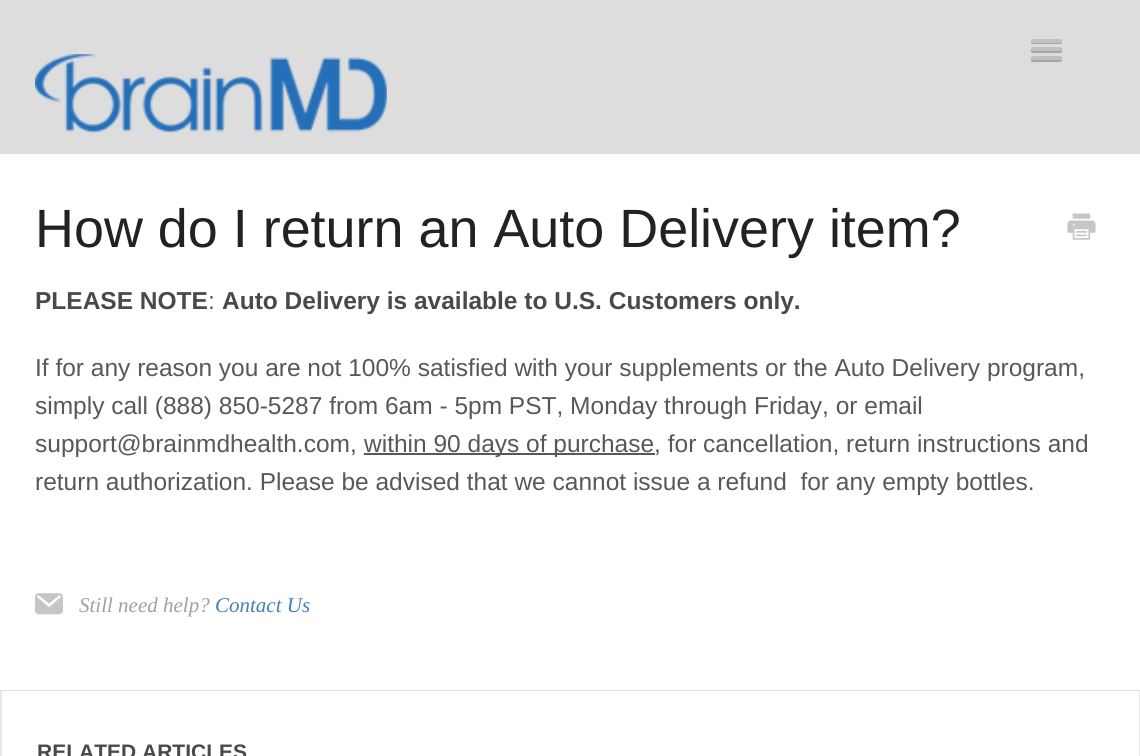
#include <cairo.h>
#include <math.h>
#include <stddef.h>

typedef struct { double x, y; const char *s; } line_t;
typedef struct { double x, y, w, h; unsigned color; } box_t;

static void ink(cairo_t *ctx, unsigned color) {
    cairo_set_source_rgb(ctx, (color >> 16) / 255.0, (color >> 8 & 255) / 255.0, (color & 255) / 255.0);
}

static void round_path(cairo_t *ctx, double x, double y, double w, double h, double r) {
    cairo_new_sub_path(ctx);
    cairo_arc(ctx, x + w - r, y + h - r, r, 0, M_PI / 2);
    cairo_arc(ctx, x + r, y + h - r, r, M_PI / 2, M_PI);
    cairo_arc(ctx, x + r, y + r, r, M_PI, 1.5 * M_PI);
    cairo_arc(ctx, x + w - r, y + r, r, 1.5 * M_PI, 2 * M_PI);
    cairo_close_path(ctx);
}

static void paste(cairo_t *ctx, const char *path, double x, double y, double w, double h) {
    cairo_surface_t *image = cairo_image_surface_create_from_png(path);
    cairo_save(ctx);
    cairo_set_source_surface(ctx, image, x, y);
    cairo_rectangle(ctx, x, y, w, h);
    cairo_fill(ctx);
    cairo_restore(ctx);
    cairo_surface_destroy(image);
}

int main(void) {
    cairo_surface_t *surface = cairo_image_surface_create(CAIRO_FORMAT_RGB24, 1140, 756);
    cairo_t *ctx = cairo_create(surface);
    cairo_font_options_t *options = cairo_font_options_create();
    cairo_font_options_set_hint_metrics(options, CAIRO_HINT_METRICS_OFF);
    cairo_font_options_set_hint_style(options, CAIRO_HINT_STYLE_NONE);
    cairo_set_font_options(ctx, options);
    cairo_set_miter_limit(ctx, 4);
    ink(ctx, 0xDDDDDD);
    cairo_paint(ctx);
    ink(ctx, 0xA6A6A6);
    cairo_new_path(ctx);
    cairo_move_to(ctx, 1031, 41.5);
    cairo_curve_to(ctx, 1030, 45, 1036.5, 44, 1037.5, 44);
    cairo_line_to(ctx, 1055.5, 44);
    cairo_curve_to(ctx, 1056.5, 44, 1063, 45, 1062, 41.5);
    cairo_line_to(ctx, 1060.5, 42);
    cairo_line_to(ctx, 1032.5, 42);
    cairo_close_path(ctx);
    cairo_fill(ctx);
    ink(ctx, 0xC0C0C0);
    round_path(ctx, 1031, 39, 31, 4, 2);
    cairo_fill(ctx);
    ink(ctx, 0xA6A6A6);
    cairo_new_path(ctx);
    cairo_move_to(ctx, 1031, 50);
    cairo_curve_to(ctx, 1029.5, 54, 1036.5, 53, 1037.5, 53);
    cairo_line_to(ctx, 1055.5, 53);
    cairo_curve_to(ctx, 1056.5, 53, 1063.5, 54, 1062, 50);
    cairo_line_to(ctx, 1060.5, 50.5);
    cairo_line_to(ctx, 1032.5, 50.5);
    cairo_close_path(ctx);
    cairo_fill(ctx);
    ink(ctx, 0xC0C0C0);
    round_path(ctx, 1031, 47, 31, 4, 2);
    cairo_fill(ctx);
    ink(ctx, 0xA6A6A6);
    cairo_new_path(ctx);
    cairo_move_to(ctx, 1031.5, 59);
    cairo_curve_to(ctx, 1029, 63, 1037, 62, 1037.5, 62);
    cairo_line_to(ctx, 1055.5, 62);
    cairo_curve_to(ctx, 1056, 62, 1064, 63, 1061.5, 59);
    cairo_line_to(ctx, 1060.5, 59.5);
    cairo_line_to(ctx, 1032.5, 59.5);
    cairo_close_path(ctx);
    cairo_fill(ctx);
    ink(ctx, 0xC0C0C0);
    round_path(ctx, 1031, 56, 31, 4, 2);
    cairo_fill(ctx);
    paste(ctx, "media/1.png", 35, 54, 352, 79);
    ink(ctx, 0xFFFFFF);
    cairo_rectangle(ctx, 0, 154, 1140, 536);
    cairo_fill(ctx);
    cairo_select_font_face(ctx, "Liberation Sans", CAIRO_FONT_SLANT_NORMAL, CAIRO_FONT_WEIGHT_NORMAL);
    cairo_set_font_size(ctx, 53.9);
    ink(ctx, 0x222222);
    cairo_move_to(ctx, 35, 247);
    cairo_show_text(ctx, "How do I return an Auto Delivery item?");
    paste(ctx, "media/2.png", 1067, 213, 29, 27);
    cairo_select_font_face(ctx, "Liberation Sans", CAIRO_FONT_SLANT_NORMAL, CAIRO_FONT_WEIGHT_BOLD);
    cairo_set_font_size(ctx, 24.5);
    ink(ctx, 0x494949);
    cairo_move_to(ctx, 35, 309);
    cairo_show_text(ctx, "PLEASE NOTE");
    cairo_select_font_face(ctx, "Liberation Sans", CAIRO_FONT_SLANT_NORMAL, CAIRO_FONT_WEIGHT_NORMAL);
    ink(ctx, 0x585858);
    cairo_move_to(ctx, 208, 309);
    cairo_show_text(ctx, ":");
    cairo_select_font_face(ctx, "Liberation Sans", CAIRO_FONT_SLANT_NORMAL, CAIRO_FONT_WEIGHT_BOLD);
    ink(ctx, 0x494949);
    cairo_move_to(ctx, 222, 309);
    cairo_show_text(ctx, "Auto Delivery is available to U.S. Customers only.");
    cairo_select_font_face(ctx, "Liberation Sans", CAIRO_FONT_SLANT_NORMAL, CAIRO_FONT_WEIGHT_NORMAL);
    ink(ctx, 0x585858);
    {
        static const line_t items[] = {
            {35, 376, "If for any reason you are not 100% satisfied with your supplements or the Auto Delivery program,"},
            {35, 414, "simply call (888) 850-5287 from 6am - 5pm PST, Monday through Friday, or email"},
            {35, 452, "support@brainmdhealth.com,"},
        };
        for (size_t i = 0; i < sizeof items / sizeof *items; i++) {
            cairo_move_to(ctx, items[i].x, items[i].y);
            cairo_show_text(ctx, items[i].s);
        }
    }
    cairo_rectangle(ctx, 364, 453, 291, 2);
    cairo_fill(ctx);
    cairo_move_to(ctx, 364, 452);
    cairo_show_text(ctx, "within 90 days of purchase, for cancellation, return instructions and");
    cairo_move_to(ctx, 35, 490);
    cairo_show_text(ctx, "return authorization. Please be advised that we cannot issue a refund  for any empty bottles.");
    paste(ctx, "media/3.png", 35, 593, 28, 22);
    cairo_select_font_face(ctx, "Liberation Serif", CAIRO_FONT_SLANT_ITALIC, CAIRO_FONT_WEIGHT_NORMAL);
    cairo_set_font_size(ctx, 21);
    ink(ctx, 0xA0A0A0);
    cairo_move_to(ctx, 79, 612);
    cairo_show_text(ctx, "Still need help?");
    ink(ctx, 0x4381B5);
    cairo_move_to(ctx, 215, 612);
    cairo_show_text(ctx, "Contact Us");
    {
        static const box_t items[] = {
            {2, 691, 1137, 65, 0xFFFFFF},
            {1139, 691, 1, 65, 0xE9E5E5},
            {0, 691, 2, 65, 0xE9E5E5},
        };
        for (size_t i = 0; i < sizeof items / sizeof *items; i++) {
            ink(ctx, items[i].color);
            cairo_rectangle(ctx, items[i].x, items[i].y, items[i].w, items[i].h);
            cairo_fill(ctx);
        }
    }
    cairo_select_font_face(ctx, "Liberation Sans", CAIRO_FONT_SLANT_NORMAL, CAIRO_FONT_WEIGHT_BOLD);
    ink(ctx, 0x494949);
    cairo_move_to(ctx, 37, 759);
    cairo_show_text(ctx, "RELATED ARTICLES");
    cairo_surface_write_to_png(surface, "image.png");
    cairo_font_options_destroy(options);
    cairo_destroy(ctx);
    cairo_surface_destroy(surface);
    return 0;
}
